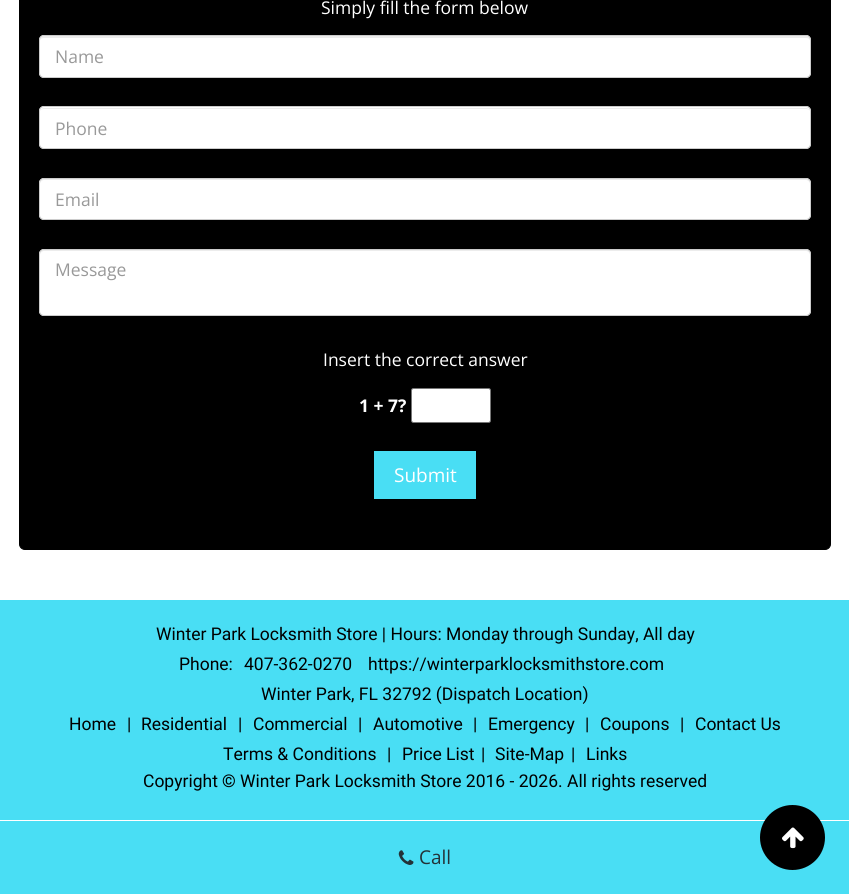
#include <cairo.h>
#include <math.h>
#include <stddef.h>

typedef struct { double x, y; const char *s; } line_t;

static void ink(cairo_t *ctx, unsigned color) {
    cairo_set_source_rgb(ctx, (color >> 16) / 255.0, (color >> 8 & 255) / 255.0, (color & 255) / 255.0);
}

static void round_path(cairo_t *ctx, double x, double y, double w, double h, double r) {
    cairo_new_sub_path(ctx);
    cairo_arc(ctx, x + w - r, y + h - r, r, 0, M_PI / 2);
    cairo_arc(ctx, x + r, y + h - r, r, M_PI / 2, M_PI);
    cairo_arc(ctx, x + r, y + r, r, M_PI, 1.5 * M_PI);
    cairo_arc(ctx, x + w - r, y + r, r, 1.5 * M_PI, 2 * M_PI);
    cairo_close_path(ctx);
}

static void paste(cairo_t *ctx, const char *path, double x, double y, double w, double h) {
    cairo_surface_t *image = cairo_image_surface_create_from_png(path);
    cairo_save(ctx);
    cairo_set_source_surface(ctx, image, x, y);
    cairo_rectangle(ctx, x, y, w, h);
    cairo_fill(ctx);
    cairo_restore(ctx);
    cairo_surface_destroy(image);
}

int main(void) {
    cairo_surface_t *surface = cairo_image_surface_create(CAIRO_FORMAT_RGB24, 849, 894);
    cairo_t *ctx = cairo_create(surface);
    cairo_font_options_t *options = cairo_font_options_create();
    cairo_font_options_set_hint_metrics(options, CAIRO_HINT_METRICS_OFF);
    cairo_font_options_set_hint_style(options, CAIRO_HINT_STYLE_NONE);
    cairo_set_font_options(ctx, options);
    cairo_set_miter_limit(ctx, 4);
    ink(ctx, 0xFFFFFF);
    cairo_paint(ctx);
    ink(ctx, 0x000000);
    round_path(ctx, 19.5, -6.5, 811, 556, 5.5);
    cairo_fill_preserve(ctx);
    cairo_set_line_width(ctx, 1);
    cairo_stroke(ctx);
    cairo_select_font_face(ctx, "Open Sans", CAIRO_FONT_SLANT_NORMAL, CAIRO_FONT_WEIGHT_NORMAL);
    cairo_set_font_size(ctx, 17.5);
    ink(ctx, 0xFFFFFF);
    cairo_move_to(ctx, 321, 14);
    cairo_show_text(ctx, "Simply fill the form below");
    round_path(ctx, 39, 35, 772, 43, 5);
    cairo_fill(ctx);
    ink(ctx, 0xECECEC);
    cairo_new_path(ctx);
    cairo_move_to(ctx, 44, 38);
    cairo_line_to(ctx, 806, 38);
    cairo_curve_to(ctx, 808, 38, 810, 39, 810, 41);
    cairo_line_to(ctx, 810, 40);
    cairo_curve_to(ctx, 810, 38, 808, 36, 806, 36);
    cairo_line_to(ctx, 44, 36);
    cairo_curve_to(ctx, 42, 36, 40, 38, 40, 40);
    cairo_line_to(ctx, 40, 41);
    cairo_curve_to(ctx, 40, 39, 42, 38, 44, 38);
    cairo_close_path(ctx);
    cairo_fill(ctx);
    round_path(ctx, 39.5, 35.5, 771, 42, 4.5);
    ink(ctx, 0xCCCCCC);
    cairo_stroke(ctx);
    ink(ctx, 0x999999);
    cairo_move_to(ctx, 55, 63);
    cairo_show_text(ctx, "Name");
    ink(ctx, 0xFFFFFF);
    round_path(ctx, 39, 106, 772, 43, 5);
    cairo_fill(ctx);
    ink(ctx, 0xECECEC);
    cairo_new_path(ctx);
    cairo_move_to(ctx, 44, 109);
    cairo_line_to(ctx, 806, 109);
    cairo_curve_to(ctx, 808, 109, 810, 110, 810, 112);
    cairo_curve_to(ctx, 810, 110, 808, 108, 806, 108);
    cairo_line_to(ctx, 44, 108);
    cairo_curve_to(ctx, 42, 108, 40, 110, 40, 112);
    cairo_curve_to(ctx, 40, 110, 42, 109, 44, 109);
    cairo_close_path(ctx);
    cairo_fill(ctx);
    round_path(ctx, 39.5, 106.5, 771, 42, 4.5);
    ink(ctx, 0xCCCCCC);
    cairo_stroke(ctx);
    ink(ctx, 0x999999);
    cairo_move_to(ctx, 55, 135);
    cairo_show_text(ctx, "Phone");
    ink(ctx, 0xFFFFFF);
    round_path(ctx, 39, 178, 772, 42, 5);
    cairo_fill(ctx);
    ink(ctx, 0xECECEC);
    cairo_new_path(ctx);
    cairo_move_to(ctx, 44, 180);
    cairo_line_to(ctx, 806, 180);
    cairo_curve_to(ctx, 808, 180, 810, 182, 810, 184);
    cairo_line_to(ctx, 810, 183);
    cairo_curve_to(ctx, 810, 181, 808, 179, 806, 179);
    cairo_line_to(ctx, 44, 179);
    cairo_curve_to(ctx, 42, 179, 40, 181, 40, 183);
    cairo_line_to(ctx, 40, 184);
    cairo_curve_to(ctx, 40, 182, 42, 180, 44, 180);
    cairo_close_path(ctx);
    cairo_fill(ctx);
    round_path(ctx, 39.5, 178.5, 771, 41, 4.5);
    ink(ctx, 0xCCCCCC);
    cairo_stroke(ctx);
    ink(ctx, 0x999999);
    cairo_move_to(ctx, 55, 206);
    cairo_show_text(ctx, "Email");
    ink(ctx, 0xFFFFFF);
    round_path(ctx, 39, 249, 772, 67, 5);
    cairo_fill(ctx);
    ink(ctx, 0xECECEC);
    cairo_new_path(ctx);
    cairo_move_to(ctx, 44, 251);
    cairo_line_to(ctx, 806, 251);
    cairo_curve_to(ctx, 808, 251, 810, 253, 810, 255);
    cairo_line_to(ctx, 810, 254);
    cairo_curve_to(ctx, 810, 252, 808, 250, 806, 250);
    cairo_line_to(ctx, 44, 250);
    cairo_curve_to(ctx, 42, 250, 40, 252, 40, 254);
    cairo_line_to(ctx, 40, 255);
    cairo_curve_to(ctx, 40, 253, 42, 251, 44, 251);
    cairo_close_path(ctx);
    cairo_fill(ctx);
    round_path(ctx, 39.5, 249.5, 771, 66, 4.5);
    ink(ctx, 0xCCCCCC);
    cairo_stroke(ctx);
    ink(ctx, 0x999999);
    cairo_move_to(ctx, 55, 276);
    cairo_show_text(ctx, "Message");
    ink(ctx, 0xFFFFFF);
    cairo_move_to(ctx, 323, 366);
    cairo_show_text(ctx, "Insert the correct answer");
    cairo_select_font_face(ctx, "Open Sans", CAIRO_FONT_SLANT_NORMAL, CAIRO_FONT_WEIGHT_BOLD);
    cairo_move_to(ctx, 359, 412);
    cairo_show_text(ctx, "1 + 7?");
    round_path(ctx, 411.5, 388.5, 79, 34, 2);
    cairo_fill_preserve(ctx);
    ink(ctx, 0x767676);
    cairo_stroke(ctx);
    ink(ctx, 0x49DEF4);
    cairo_rectangle(ctx, 374, 451, 102, 48);
    cairo_fill(ctx);
    cairo_select_font_face(ctx, "Open Sans", CAIRO_FONT_SLANT_NORMAL, CAIRO_FONT_WEIGHT_NORMAL);
    cairo_set_font_size(ctx, 19);
    ink(ctx, 0xFFFFFF);
    cairo_move_to(ctx, 394, 482);
    cairo_show_text(ctx, "Submit");
    ink(ctx, 0x49DEF4);
    cairo_rectangle(ctx, 0, 600, 849, 294);
    cairo_fill(ctx);
    cairo_select_font_face(ctx, "Roboto", CAIRO_FONT_SLANT_NORMAL, CAIRO_FONT_WEIGHT_NORMAL);
    cairo_set_font_size(ctx, 17.5);
    ink(ctx, 0x000000);
    {
        static const line_t items[] = {
            {156, 640, "Winter Park Locksmith Store | Hours: Monday through Sunday, All day"},
            {179, 670, "Phone:"},
            {244, 670, "407-362-0270"},
            {368, 670, "https://winterparklocksmithstore.com"},
            {261, 700, "Winter Park, FL 32792 (Dispatch Location)"},
            {69, 730, "Home"},
            {127, 730, "|"},
            {141, 730, "Residential"},
            {238, 730, "|"},
            {253, 730, "Commercial"},
            {358, 730, "|"},
            {373, 730, "Automotive"},
            {473, 730, "|"},
            {488, 730, "Emergency"},
            {585, 730, "|"},
            {600, 730, "Coupons"},
            {680, 730, "|"},
            {695, 730, "Contact Us"},
            {223, 760, "Terms & Conditions"},
            {387, 760, "|"},
            {402, 760, "Price List"},
            {481, 760, "|"},
            {495, 760, "Site-Map"},
            {571, 760, "|"},
            {586, 760, "Links"},
            {143, 787, "Copyright"},
        };
        for (size_t i = 0; i < sizeof items / sizeof *items; i++) {
            cairo_move_to(ctx, items[i].x, items[i].y);
            cairo_show_text(ctx, items[i].s);
        }
    }
    cairo_select_font_face(ctx, "Roboto", CAIRO_FONT_SLANT_NORMAL, CAIRO_FONT_WEIGHT_BOLD);
    cairo_move_to(ctx, 222, 787);
    cairo_show_text(ctx, "©");
    cairo_select_font_face(ctx, "Roboto", CAIRO_FONT_SLANT_NORMAL, CAIRO_FONT_WEIGHT_NORMAL);
    cairo_move_to(ctx, 240, 787);
    cairo_show_text(ctx, "Winter Park Locksmith Store 2016 - 2026. All rights reserved");
    ink(ctx, 0xFFFFFF);
    cairo_rectangle(ctx, 0, 820, 849, 1);
    cairo_fill(ctx);
    paste(ctx, "media/1.png", 398, 850, 16, 15);
    cairo_select_font_face(ctx, "Open Sans", CAIRO_FONT_SLANT_NORMAL, CAIRO_FONT_WEIGHT_NORMAL);
    cairo_set_font_size(ctx, 19);
    ink(ctx, 0x233237);
    cairo_move_to(ctx, 419, 864);
    cairo_show_text(ctx, "Call");
    ink(ctx, 0x000000);
    cairo_new_path(ctx);
    cairo_arc(ctx, 792.5, 837.5, 32.5, 0, 2 * M_PI);
    cairo_fill(ctx);
    paste(ctx, "media/2.png", 782, 827, 22, 22);
    cairo_surface_write_to_png(surface, "image.png");
    cairo_font_options_destroy(options);
    cairo_destroy(ctx);
    cairo_surface_destroy(surface);
    return 0;
}
